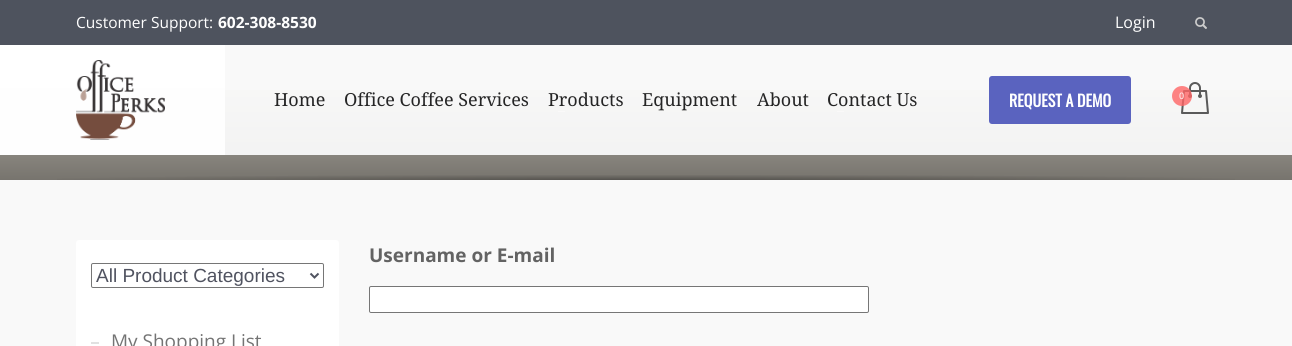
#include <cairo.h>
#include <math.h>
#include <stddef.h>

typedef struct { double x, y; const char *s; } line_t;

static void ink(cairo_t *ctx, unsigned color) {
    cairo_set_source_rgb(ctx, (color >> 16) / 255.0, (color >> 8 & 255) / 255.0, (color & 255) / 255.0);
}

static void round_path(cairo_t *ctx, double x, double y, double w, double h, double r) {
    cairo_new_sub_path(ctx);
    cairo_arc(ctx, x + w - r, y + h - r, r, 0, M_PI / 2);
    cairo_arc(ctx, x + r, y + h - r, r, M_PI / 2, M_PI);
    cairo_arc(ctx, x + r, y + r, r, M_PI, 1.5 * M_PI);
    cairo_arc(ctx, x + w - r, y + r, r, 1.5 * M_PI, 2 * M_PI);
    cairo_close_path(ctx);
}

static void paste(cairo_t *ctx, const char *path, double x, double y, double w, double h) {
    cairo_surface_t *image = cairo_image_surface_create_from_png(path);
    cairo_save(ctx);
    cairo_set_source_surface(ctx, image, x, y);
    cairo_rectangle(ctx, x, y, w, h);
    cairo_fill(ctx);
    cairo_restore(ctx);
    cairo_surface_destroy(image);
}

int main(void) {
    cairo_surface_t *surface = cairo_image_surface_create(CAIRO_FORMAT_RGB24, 1292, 346);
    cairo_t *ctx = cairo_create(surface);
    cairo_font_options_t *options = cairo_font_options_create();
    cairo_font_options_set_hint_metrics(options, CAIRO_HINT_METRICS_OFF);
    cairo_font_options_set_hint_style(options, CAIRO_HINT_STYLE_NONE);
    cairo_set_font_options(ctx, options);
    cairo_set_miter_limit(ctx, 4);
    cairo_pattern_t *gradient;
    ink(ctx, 0xF9F9F9);
    cairo_paint(ctx);
    ink(ctx, 0x4E535E);
    cairo_rectangle(ctx, 0, 0, 1292, 45);
    cairo_fill(ctx);
    cairo_select_font_face(ctx, "Open Sans", CAIRO_FONT_SLANT_NORMAL, CAIRO_FONT_WEIGHT_NORMAL);
    cairo_set_font_size(ctx, 15.5);
    ink(ctx, 0xFFFFFF);
    cairo_move_to(ctx, 76, 28);
    cairo_show_text(ctx, "Customer Support:");
    cairo_select_font_face(ctx, "Open Sans", CAIRO_FONT_SLANT_NORMAL, CAIRO_FONT_WEIGHT_BOLD);
    cairo_move_to(ctx, 218, 28);
    cairo_show_text(ctx, "602-308-8530");
    cairo_select_font_face(ctx, "Open Sans", CAIRO_FONT_SLANT_NORMAL, CAIRO_FONT_WEIGHT_NORMAL);
    cairo_set_font_size(ctx, 16);
    cairo_move_to(ctx, 1115, 28);
    cairo_show_text(ctx, "Login");
    paste(ctx, "media/1.png", 1195, 17, 12, 12);
    gradient = cairo_pattern_create_linear(646, 0, 646, 180);
    cairo_pattern_add_color_stop_rgba(gradient, 0, 1, 1, 1, 1);
    cairo_pattern_add_color_stop_rgba(gradient, 1, 0.996, 0.996, 0.996, 1);
    cairo_set_source(ctx, gradient);
    cairo_pattern_destroy(gradient);
    cairo_rectangle(ctx, 0, 45, 225, 110);
    cairo_fill(ctx);
    paste(ctx, "media/2.png", 76, 60, 89, 80);
    gradient = cairo_pattern_create_linear(646, 0, 646, 180);
    cairo_pattern_add_color_stop_rgba(gradient, 0, 0.992, 0.992, 0.988, 1);
    cairo_pattern_add_color_stop_rgba(gradient, 1, 0.945, 0.945, 0.945, 1);
    cairo_set_source(ctx, gradient);
    cairo_pattern_destroy(gradient);
    cairo_rectangle(ctx, 225, 90, 1067, 65);
    cairo_fill(ctx);
    cairo_select_font_face(ctx, "Droid Serif", CAIRO_FONT_SLANT_NORMAL, CAIRO_FONT_WEIGHT_NORMAL);
    cairo_set_font_size(ctx, 18);
    ink(ctx, 0x252525);
    {
        static const line_t items[] = {
            {274, 106, "Home"},
            {344, 106, "Office Coffee Services"},
            {548, 106, "Products"},
        };
        for (size_t i = 0; i < sizeof items / sizeof *items; i++) {
            cairo_move_to(ctx, items[i].x, items[i].y);
            cairo_show_text(ctx, items[i].s);
        }
    }
    ink(ctx, 0xFAF9F9);
    cairo_rectangle(ctx, 558, 111, 7, 1);
    cairo_fill(ctx);
    ink(ctx, 0x252525);
    {
        static const line_t items[] = {
            {642, 106, "Equipment"},
            {757, 106, "About"},
            {827, 106, "Contact Us"},
        };
        for (size_t i = 0; i < sizeof items / sizeof *items; i++) {
            cairo_move_to(ctx, items[i].x, items[i].y);
            cairo_show_text(ctx, items[i].s);
        }
    }
    ink(ctx, 0xFAF9F9);
    cairo_rectangle(ctx, 837, 111, 7, 1);
    cairo_fill(ctx);
    ink(ctx, 0x5A63BF);
    round_path(ctx, 989, 76, 142, 48, 3);
    cairo_fill(ctx);
    cairo_select_font_face(ctx, "Oswald", CAIRO_FONT_SLANT_NORMAL, CAIRO_FONT_WEIGHT_BOLD);
    cairo_set_font_size(ctx, 16);
    ink(ctx, 0xFFFFFF);
    cairo_move_to(ctx, 1009, 107);
    cairo_show_text(ctx, "REQUEST A DEMO");
    paste(ctx, "media/3.png", 1181, 82, 28, 32);
    cairo_set_source_rgba(ctx, 1, 0.4, 0.4, 0.8);
    cairo_arc(ctx, 1182, 96, 10, 0, 2 * M_PI);
    cairo_fill(ctx);
    cairo_select_font_face(ctx, "Open Sans SemiBold", CAIRO_FONT_SLANT_NORMAL, CAIRO_FONT_WEIGHT_NORMAL);
    cairo_set_font_size(ctx, 9);
    ink(ctx, 0xFDE4E4);
    cairo_move_to(ctx, 1179, 99);
    cairo_show_text(ctx, "0");
    gradient = cairo_pattern_create_linear(646, 0, 646, 180);
    cairo_pattern_add_color_stop_rgba(gradient, 0, 0.937, 0.91, 0.863, 1);
    cairo_pattern_add_color_stop_rgba(gradient, 1, 0.467, 0.455, 0.431, 1);
    cairo_set_source(ctx, gradient);
    cairo_pattern_destroy(gradient);
    cairo_rectangle(ctx, 0, 155, 1292, 25);
    cairo_fill(ctx);
    gradient = cairo_pattern_create_radial(0, 0, 0, 0, 0, 1);
    cairo_pattern_set_matrix(gradient, &(cairo_matrix_t){1.0 / 914, 0, 0, 1.0 / 8, -1.0 * 646 / 914, -1.0 * 180 / 8});
    cairo_pattern_add_color_stop_rgba(gradient, 0, 0, 0, 0, 0.3);
    cairo_pattern_add_color_stop_rgba(gradient, 0.7, 0, 0, 0, 0);
    cairo_set_source(ctx, gradient);
    cairo_pattern_destroy(gradient);
    cairo_rectangle(ctx, 57, 175, 1178, 5);
    cairo_fill(ctx);
    cairo_select_font_face(ctx, "Open Sans", CAIRO_FONT_SLANT_NORMAL, CAIRO_FONT_WEIGHT_BOLD);
    cairo_set_font_size(ctx, 19);
    ink(ctx, 0x636363);
    cairo_move_to(ctx, 369, 262);
    cairo_show_text(ctx, "Username or E-mail");
    ink(ctx, 0xFFFFFF);
    round_path(ctx, 369.5, 286.5, 499, 26, 1.5);
    cairo_fill_preserve(ctx);
    ink(ctx, 0x767676);
    cairo_set_line_width(ctx, 1);
    cairo_stroke(ctx);
    ink(ctx, 0xFFFFFF);
    round_path(ctx, 76, 240, 263, 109, 3);
    cairo_fill(ctx);
    round_path(ctx, 91.5, 263.5, 232, 24, 1.5);
    ink(ctx, 0x767676);
    cairo_stroke(ctx);
    cairo_new_path(ctx);
    cairo_move_to(ctx, 310.5, 273.5);
    cairo_line_to(ctx, 314.5, 277.5);
    cairo_line_to(ctx, 318.5, 273.5);
    ink(ctx, 0x505360);
    cairo_set_line_width(ctx, 2);
    cairo_stroke(ctx);
    cairo_select_font_face(ctx, "Liberation Sans", CAIRO_FONT_SLANT_NORMAL, CAIRO_FONT_WEIGHT_NORMAL);
    cairo_move_to(ctx, 96, 282);
    cairo_show_text(ctx, "All Product Categories");
    ink(ctx, 0xE1E1E1);
    cairo_rectangle(ctx, 91, 342, 8, 2);
    cairo_fill(ctx);
    cairo_select_font_face(ctx, "Open Sans", CAIRO_FONT_SLANT_NORMAL, CAIRO_FONT_WEIGHT_NORMAL);
    ink(ctx, 0x747474);
    cairo_move_to(ctx, 111, 348);
    cairo_show_text(ctx, "My Shopping List");
    cairo_surface_write_to_png(surface, "image.png");
    cairo_font_options_destroy(options);
    cairo_destroy(ctx);
    cairo_surface_destroy(surface);
    return 0;
}
